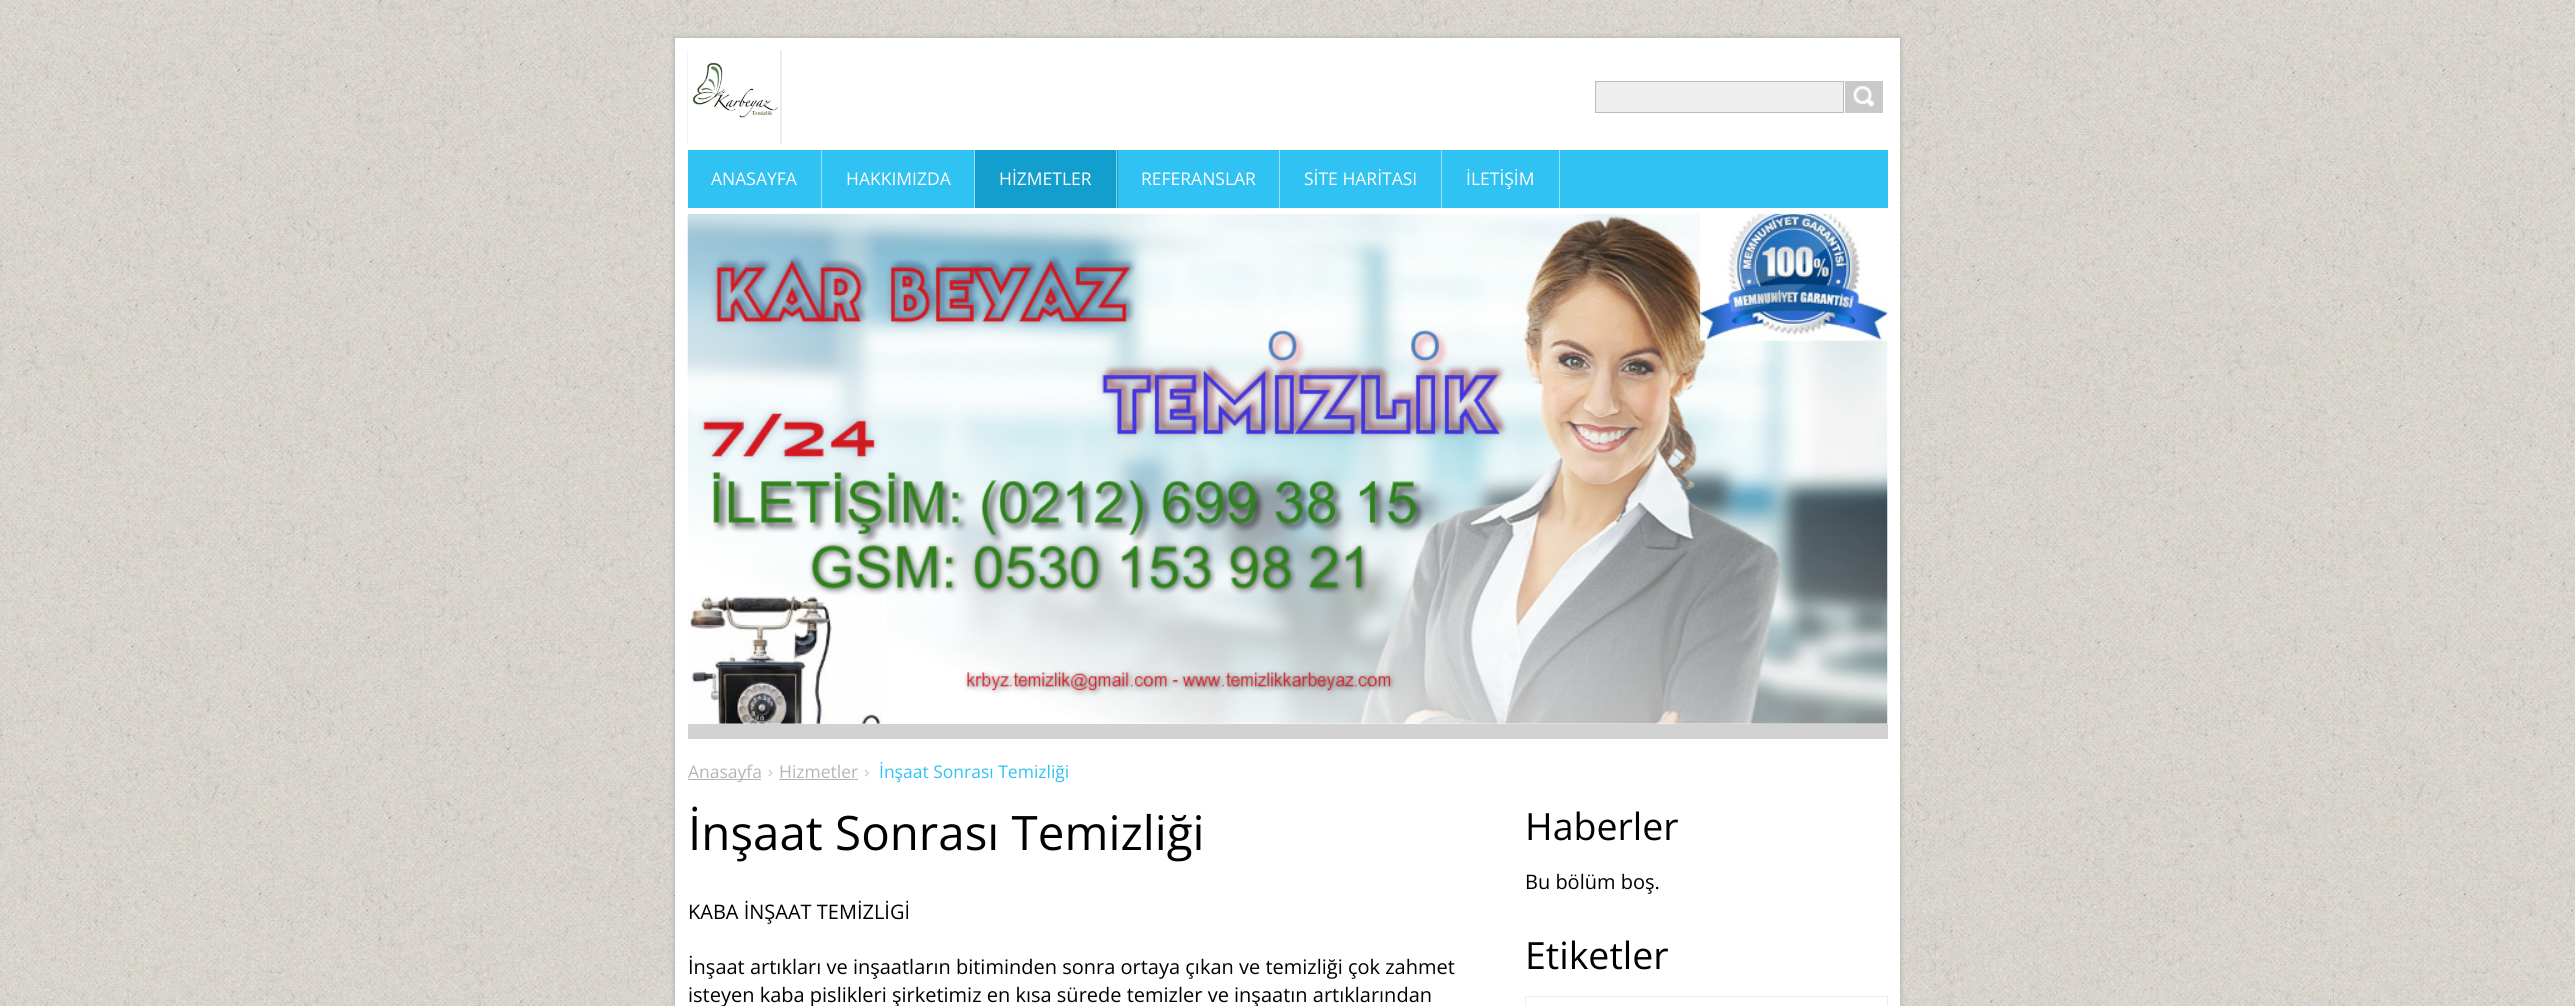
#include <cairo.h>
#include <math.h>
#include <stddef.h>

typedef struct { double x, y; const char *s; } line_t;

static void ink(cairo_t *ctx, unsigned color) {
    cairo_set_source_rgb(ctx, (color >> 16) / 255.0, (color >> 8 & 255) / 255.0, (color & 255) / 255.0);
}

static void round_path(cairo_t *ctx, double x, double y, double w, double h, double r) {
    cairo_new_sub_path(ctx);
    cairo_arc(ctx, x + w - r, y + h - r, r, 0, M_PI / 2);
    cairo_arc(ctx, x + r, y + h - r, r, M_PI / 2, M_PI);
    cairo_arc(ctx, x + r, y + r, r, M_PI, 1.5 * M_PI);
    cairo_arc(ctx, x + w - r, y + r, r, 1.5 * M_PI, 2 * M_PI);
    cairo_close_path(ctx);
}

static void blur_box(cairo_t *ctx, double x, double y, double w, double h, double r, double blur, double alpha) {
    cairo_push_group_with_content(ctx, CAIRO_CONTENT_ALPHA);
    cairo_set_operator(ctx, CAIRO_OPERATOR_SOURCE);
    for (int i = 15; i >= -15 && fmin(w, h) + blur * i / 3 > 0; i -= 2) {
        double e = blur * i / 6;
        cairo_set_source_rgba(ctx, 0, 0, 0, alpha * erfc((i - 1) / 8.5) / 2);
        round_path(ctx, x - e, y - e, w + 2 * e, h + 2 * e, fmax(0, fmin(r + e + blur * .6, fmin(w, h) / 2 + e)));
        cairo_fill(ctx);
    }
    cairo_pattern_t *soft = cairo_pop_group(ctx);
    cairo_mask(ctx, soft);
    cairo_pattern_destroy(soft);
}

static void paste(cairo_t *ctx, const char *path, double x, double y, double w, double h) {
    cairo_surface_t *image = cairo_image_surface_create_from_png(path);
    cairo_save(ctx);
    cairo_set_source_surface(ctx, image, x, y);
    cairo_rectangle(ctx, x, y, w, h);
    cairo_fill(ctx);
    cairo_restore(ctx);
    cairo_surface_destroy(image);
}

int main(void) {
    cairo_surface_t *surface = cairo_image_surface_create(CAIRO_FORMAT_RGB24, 2575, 1006);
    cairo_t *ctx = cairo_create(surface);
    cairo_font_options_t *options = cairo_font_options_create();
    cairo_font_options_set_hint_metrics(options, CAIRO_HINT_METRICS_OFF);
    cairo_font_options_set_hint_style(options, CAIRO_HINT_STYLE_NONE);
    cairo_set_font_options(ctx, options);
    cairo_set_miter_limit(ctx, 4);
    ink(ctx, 0xFFFFFF);
    cairo_paint(ctx);
    paste(ctx, "media/1.png", 0, 0, 2575, 1006);
    ink(ctx, 0x989898);
    blur_box(ctx, 675, 38, 1225, 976, 0, 2.5, 0.75);
    ink(ctx, 0xFFFFFF);
    cairo_rectangle(ctx, 675, 38, 1225, 968);
    cairo_fill(ctx);
    paste(ctx, "media/2.png", 687, 50, 95, 94);
    ink(ctx, 0xD2D2D2);
    cairo_rectangle(ctx, 688, 724, 1200, 15);
    cairo_fill(ctx);
    paste(ctx, "media/3.png", 687, 213, 1201, 511);
    ink(ctx, 0xEEEEEE);
    cairo_rectangle(ctx, 1595.5, 81.5, 248, 31);
    cairo_fill_preserve(ctx);
    ink(ctx, 0xBBBBBB);
    cairo_set_line_width(ctx, 1);
    cairo_stroke(ctx);
    ink(ctx, 0xC9C9C9);
    cairo_rectangle(ctx, 1845, 81, 38, 32);
    cairo_fill(ctx);
    paste(ctx, "media/4.png", 1853, 86, 21, 21);
    ink(ctx, 0x2FC2F2);
    cairo_rectangle(ctx, 688, 150, 1200, 58);
    cairo_fill(ctx);
    ink(ctx, 0x97E1F9);
    cairo_rectangle(ctx, 821, 150, 1, 58);
    cairo_fill(ctx);
    cairo_select_font_face(ctx, "Open Sans", CAIRO_FONT_SLANT_NORMAL, CAIRO_FONT_WEIGHT_NORMAL);
    cairo_set_font_size(ctx, 17.5);
    ink(ctx, 0xFFFFFF);
    cairo_move_to(ctx, 711, 185);
    cairo_show_text(ctx, "ANASAYFA");
    ink(ctx, 0x97E1F9);
    cairo_rectangle(ctx, 974, 150, 1, 58);
    cairo_fill(ctx);
    ink(ctx, 0xFFFFFF);
    cairo_move_to(ctx, 846, 185);
    cairo_show_text(ctx, "HAKKIMIZDA");
    ink(ctx, 0x129FCD);
    cairo_rectangle(ctx, 975, 150, 143, 58);
    cairo_fill(ctx);
    ink(ctx, 0x89CFE6);
    cairo_rectangle(ctx, 1116, 150, 1, 58);
    cairo_fill(ctx);
    ink(ctx, 0xFFFFFF);
    cairo_move_to(ctx, 999, 185);
    cairo_show_text(ctx, "HİZMETLER");
    ink(ctx, 0x97E1F9);
    cairo_rectangle(ctx, 1279, 150, 1, 58);
    cairo_fill(ctx);
    ink(ctx, 0xFFFFFF);
    cairo_move_to(ctx, 1141, 185);
    cairo_show_text(ctx, "REFERANSLAR");
    ink(ctx, 0x97E1F9);
    cairo_rectangle(ctx, 1441, 150, 1, 58);
    cairo_fill(ctx);
    ink(ctx, 0xFFFFFF);
    cairo_move_to(ctx, 1304, 185);
    cairo_show_text(ctx, "SİTE HARİTASI");
    ink(ctx, 0x97E1F9);
    cairo_rectangle(ctx, 1559, 150, 1, 58);
    cairo_fill(ctx);
    ink(ctx, 0xFFFFFF);
    cairo_move_to(ctx, 1466, 185);
    cairo_show_text(ctx, "İLETİŞİM");
    ink(ctx, 0xB5B5B5);
    cairo_rectangle(ctx, 688, 779, 73, 1);
    cairo_fill(ctx);
    cairo_move_to(ctx, 688, 778);
    cairo_show_text(ctx, "Anasayfa");
    paste(ctx, "media/5.png", 768, 770, 5, 7);
    cairo_move_to(ctx, 779, 778);
    cairo_show_text(ctx, "Hizmetler");
    cairo_rectangle(ctx, 779, 779, 79, 1);
    cairo_fill(ctx);
    paste(ctx, "media/6.png", 865, 770, 4, 7);
    ink(ctx, 0x2FC2F2);
    cairo_move_to(ctx, 879, 778);
    cairo_show_text(ctx, "İnşaat Sonrası Temizliği");
    cairo_set_font_size(ctx, 47.5);
    ink(ctx, 0x000000);
    cairo_move_to(ctx, 688, 850);
    cairo_show_text(ctx, "İnşaat Sonrası Temizliği");
    cairo_set_font_size(ctx, 20);
    {
        static const line_t items[] = {
            {688, 919, "KABA İNŞAAT TEMİZLİGİ"},
            {688, 974, "İnşaat artıkları ve inşaatların bitiminden sonra ortaya çıkan ve temizliği çok zahmet"},
            {688, 1002, "isteyen kaba pislikleri şirketimiz en kısa sürede temizler ve inşaatın artıklarından"},
        };
        for (size_t i = 0; i < sizeof items / sizeof *items; i++) {
            cairo_move_to(ctx, items[i].x, items[i].y);
            cairo_show_text(ctx, items[i].s);
        }
    }
    cairo_set_font_size(ctx, 37.5);
    cairo_move_to(ctx, 1525, 840);
    cairo_show_text(ctx, "Haberler");
    cairo_set_font_size(ctx, 20);
    cairo_move_to(ctx, 1525, 889);
    cairo_show_text(ctx, "Bu bölüm boş.");
    cairo_set_font_size(ctx, 37.5);
    cairo_move_to(ctx, 1525, 969);
    cairo_show_text(ctx, "Etiketler");
    cairo_rectangle(ctx, 1525.5, 996.5, 362, 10);
    ink(ctx, 0xECECEC);
    cairo_stroke(ctx);
    cairo_surface_write_to_png(surface, "image.png");
    cairo_font_options_destroy(options);
    cairo_destroy(ctx);
    cairo_surface_destroy(surface);
    return 0;
}
